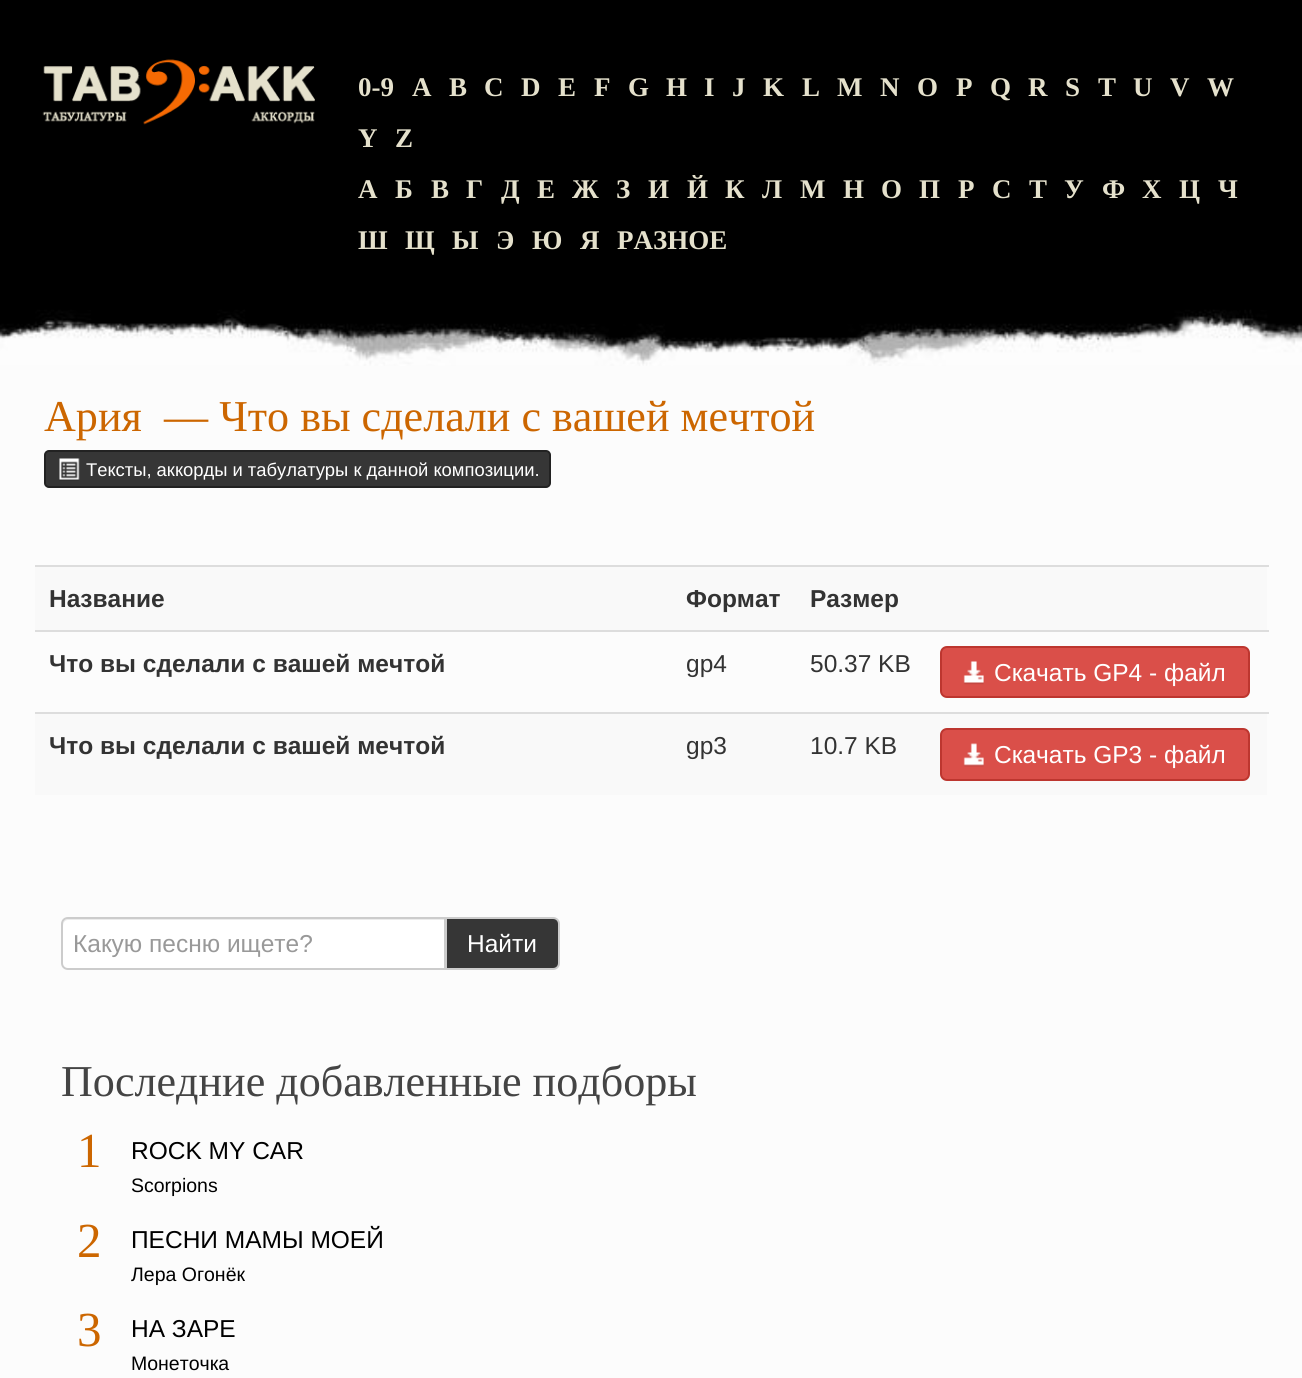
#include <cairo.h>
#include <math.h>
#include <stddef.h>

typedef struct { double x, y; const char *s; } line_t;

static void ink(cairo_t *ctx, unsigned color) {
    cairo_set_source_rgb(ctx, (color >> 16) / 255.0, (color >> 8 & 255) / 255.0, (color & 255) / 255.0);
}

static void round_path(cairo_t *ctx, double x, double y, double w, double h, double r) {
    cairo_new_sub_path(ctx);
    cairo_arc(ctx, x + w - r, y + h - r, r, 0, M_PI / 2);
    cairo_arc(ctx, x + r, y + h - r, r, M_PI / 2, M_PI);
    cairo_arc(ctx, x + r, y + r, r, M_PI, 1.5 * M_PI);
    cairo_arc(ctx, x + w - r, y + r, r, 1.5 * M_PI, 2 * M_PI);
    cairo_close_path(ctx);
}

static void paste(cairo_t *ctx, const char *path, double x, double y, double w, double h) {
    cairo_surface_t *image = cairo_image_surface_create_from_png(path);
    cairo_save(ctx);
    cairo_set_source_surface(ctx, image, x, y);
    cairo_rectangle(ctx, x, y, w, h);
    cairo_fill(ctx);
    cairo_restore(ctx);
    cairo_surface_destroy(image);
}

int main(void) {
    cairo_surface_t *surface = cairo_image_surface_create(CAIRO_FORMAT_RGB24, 1302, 1378);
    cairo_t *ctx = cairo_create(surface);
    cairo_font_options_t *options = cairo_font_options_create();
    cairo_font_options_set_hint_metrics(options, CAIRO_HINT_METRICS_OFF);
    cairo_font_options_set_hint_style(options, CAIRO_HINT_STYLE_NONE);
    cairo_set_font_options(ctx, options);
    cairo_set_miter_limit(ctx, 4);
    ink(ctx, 0x000000);
    cairo_paint(ctx);
    paste(ctx, "media/1.png", 42, 59, 273, 66);
    cairo_select_font_face(ctx, "Liberation Serif", CAIRO_FONT_SLANT_NORMAL, CAIRO_FONT_WEIGHT_BOLD);
    cairo_set_font_size(ctx, 27);
    ink(ctx, 0xE5E1CC);
    {
        static const line_t items[] = {
            {358, 96, "0-9"},
            {412, 96, "A"},
            {449, 96, "B"},
            {484, 96, "C"},
            {521, 96, "D"},
            {558, 96, "E"},
            {594, 96, "F"},
            {628, 96, "G"},
            {666, 96, "H"},
            {704, 96, "I"},
            {732, 96, "J"},
            {763, 96, "K"},
            {802, 96, "L"},
            {837, 96, "M"},
            {880, 96, "N"},
            {917, 96, "O"},
            {956, 96, "P"},
            {990, 96, "Q"},
            {1028, 96, "R"},
            {1065, 96, "S"},
            {1098, 96, "T"},
            {1133, 96, "U"},
            {1170, 96, "V"},
            {1207, 96, "W"},
            {358, 147, "Y"},
            {395, 147, "Z"},
            {358, 198, "А"},
            {395, 198, "Б"},
            {431, 198, "В"},
            {466, 198, "Г"},
            {501, 198, "Д"},
            {537, 198, "Е"},
            {572, 198, "Ж"},
            {616, 198, "З"},
            {648, 198, "И"},
            {687, 198, "Й"},
            {725, 198, "К"},
            {762, 198, "Л"},
            {800, 198, "М"},
            {843, 198, "Н"},
            {881, 198, "О"},
            {919, 198, "П"},
            {958, 198, "Р"},
            {992, 198, "С"},
            {1029, 198, "Т"},
            {1064, 198, "У"},
            {1102, 198, "Ф"},
            {1142, 198, "Х"},
            {1179, 198, "Ц"},
            {1218, 198, "Ч"},
            {358, 249, "Ш"},
            {405, 249, "Щ"},
            {452, 249, "Ы"},
            {496, 249, "Э"},
            {532, 249, "Ю"},
            {580, 249, "Я"},
            {617, 249, "РАЗНОЕ"},
        };
        for (size_t i = 0; i < sizeof items / sizeof *items; i++) {
            cairo_move_to(ctx, items[i].x, items[i].y);
            cairo_show_text(ctx, items[i].s);
        }
    }
    ink(ctx, 0xFCFCFC);
    cairo_rectangle(ctx, 0, 365, 1302, 1013);
    cairo_fill(ctx);
    paste(ctx, "media/2.png", 0, 296, 1302, 70);
    cairo_select_font_face(ctx, "Liberation Serif", CAIRO_FONT_SLANT_NORMAL, CAIRO_FONT_WEIGHT_NORMAL);
    cairo_set_font_size(ctx, 44.1);
    ink(ctx, 0xCC6600);
    cairo_move_to(ctx, 44, 431);
    cairo_show_text(ctx, "Ария");
    cairo_move_to(ctx, 164, 431);
    cairo_show_text(ctx, "— Что вы сделали с вашей мечтой");
    ink(ctx, 0x363636);
    round_path(ctx, 45, 451, 505, 36, 4);
    cairo_fill_preserve(ctx);
    ink(ctx, 0x222222);
    cairo_stroke(ctx);
    paste(ctx, "media/3.png", 59, 458, 21, 23);
    cairo_select_font_face(ctx, "Liberation Sans", CAIRO_FONT_SLANT_NORMAL, CAIRO_FONT_WEIGHT_NORMAL);
    cairo_set_font_size(ctx, 18.4);
    ink(ctx, 0xFFFFFF);
    cairo_move_to(ctx, 86, 476);
    cairo_show_text(ctx, "Тексты, аккорды и табулатуры к данной композиции.");
    ink(ctx, 0xDDDDDD);
    cairo_rectangle(ctx, 35, 565, 1234, 2);
    cairo_fill(ctx);
    ink(ctx, 0xF9F9F9);
    cairo_rectangle(ctx, 35, 567, 1232, 63);
    cairo_fill(ctx);
    cairo_select_font_face(ctx, "Liberation Sans", CAIRO_FONT_SLANT_NORMAL, CAIRO_FONT_WEIGHT_BOLD);
    cairo_set_font_size(ctx, 24.5);
    ink(ctx, 0x333333);
    {
        static const line_t items[] = {
            {49, 607, "Название"},
            {686, 607, "Формат"},
            {810, 607, "Размер"},
            {49, 672, "Что вы сделали с вашей мечтой"},
        };
        for (size_t i = 0; i < sizeof items / sizeof *items; i++) {
            cairo_move_to(ctx, items[i].x, items[i].y);
            cairo_show_text(ctx, items[i].s);
        }
    }
    cairo_select_font_face(ctx, "Liberation Sans", CAIRO_FONT_SLANT_NORMAL, CAIRO_FONT_WEIGHT_NORMAL);
    cairo_move_to(ctx, 686, 672);
    cairo_show_text(ctx, "gp4");
    cairo_move_to(ctx, 810, 672);
    cairo_show_text(ctx, "50.37 KB");
    ink(ctx, 0xDDDDDD);
    cairo_rectangle(ctx, 35, 630, 1234, 2);
    cairo_fill(ctx);
    ink(ctx, 0xDA4F49);
    round_path(ctx, 941, 647, 308, 50, 6);
    cairo_fill_preserve(ctx);
    ink(ctx, 0xBD362F);
    cairo_stroke(ctx);
    paste(ctx, "media/4.png", 963, 661, 21, 24);
    ink(ctx, 0xFFFFFF);
    cairo_move_to(ctx, 994, 681);
    cairo_show_text(ctx, "Скачать GP4 - файл");
    ink(ctx, 0xF9F9F9);
    cairo_rectangle(ctx, 35, 714, 1232, 81);
    cairo_fill(ctx);
    cairo_select_font_face(ctx, "Liberation Sans", CAIRO_FONT_SLANT_NORMAL, CAIRO_FONT_WEIGHT_BOLD);
    ink(ctx, 0x333333);
    cairo_move_to(ctx, 49, 754);
    cairo_show_text(ctx, "Что вы сделали с вашей мечтой");
    cairo_select_font_face(ctx, "Liberation Sans", CAIRO_FONT_SLANT_NORMAL, CAIRO_FONT_WEIGHT_NORMAL);
    cairo_move_to(ctx, 686, 754);
    cairo_show_text(ctx, "gp3");
    cairo_move_to(ctx, 810, 754);
    cairo_show_text(ctx, "10.7 KB");
    ink(ctx, 0xDDDDDD);
    cairo_rectangle(ctx, 35, 712, 1234, 2);
    cairo_fill(ctx);
    ink(ctx, 0xDA4F49);
    round_path(ctx, 941, 729, 308, 51, 6);
    cairo_fill_preserve(ctx);
    ink(ctx, 0xBD362F);
    cairo_stroke(ctx);
    paste(ctx, "media/5.png", 963, 743, 21, 24);
    ink(ctx, 0xFFFFFF);
    cairo_move_to(ctx, 994, 763);
    cairo_show_text(ctx, "Скачать GP3 - файл");
    cairo_new_path(ctx);
    cairo_move_to(ctx, 68, 917);
    cairo_line_to(ctx, 446, 917);
    cairo_line_to(ctx, 446, 970);
    cairo_line_to(ctx, 68, 970);
    cairo_curve_to(ctx, 64, 970, 61, 967, 61, 963);
    cairo_line_to(ctx, 61, 924);
    cairo_curve_to(ctx, 61, 920, 64, 917, 68, 917);
    cairo_close_path(ctx);
    cairo_fill(ctx);
    ink(ctx, 0xECECEC);
    cairo_new_path(ctx);
    cairo_move_to(ctx, 68, 920);
    cairo_line_to(ctx, 444, 920);
    cairo_line_to(ctx, 444, 968);
    cairo_line_to(ctx, 445, 968);
    cairo_line_to(ctx, 445, 919);
    cairo_line_to(ctx, 68, 919);
    cairo_curve_to(ctx, 65, 919, 63, 921, 63, 924);
    cairo_line_to(ctx, 63, 926);
    cairo_curve_to(ctx, 63, 923, 65, 920, 68, 920);
    cairo_close_path(ctx);
    cairo_fill(ctx);
    cairo_new_path(ctx);
    cairo_move_to(ctx, 68, 918);
    cairo_line_to(ctx, 445, 918);
    cairo_line_to(ctx, 445, 969);
    cairo_line_to(ctx, 68, 969);
    cairo_curve_to(ctx, 64.5, 969, 62, 966.5, 62, 963);
    cairo_line_to(ctx, 62, 924);
    cairo_curve_to(ctx, 62, 920.5, 64.5, 918, 68, 918);
    cairo_close_path(ctx);
    ink(ctx, 0xCCCCCC);
    cairo_stroke(ctx);
    ink(ctx, 0x999999);
    cairo_move_to(ctx, 73, 952);
    cairo_show_text(ctx, "Какую песню ищете?");
    ink(ctx, 0x363636);
    cairo_new_path(ctx);
    cairo_move_to(ctx, 446, 918);
    cairo_line_to(ctx, 553, 918);
    cairo_curve_to(ctx, 556.5, 918, 559, 920.5, 559, 924);
    cairo_line_to(ctx, 559, 963);
    cairo_curve_to(ctx, 559, 966.5, 556.5, 969, 553, 969);
    cairo_line_to(ctx, 446, 969);
    cairo_close_path(ctx);
    cairo_fill_preserve(ctx);
    ink(ctx, 0xCCCCCC);
    cairo_stroke(ctx);
    ink(ctx, 0xFFFFFF);
    cairo_move_to(ctx, 467, 952);
    cairo_show_text(ctx, "Найти");
    cairo_select_font_face(ctx, "Liberation Serif", CAIRO_FONT_SLANT_NORMAL, CAIRO_FONT_WEIGHT_NORMAL);
    cairo_set_font_size(ctx, 44.1);
    ink(ctx, 0x444444);
    cairo_move_to(ctx, 61, 1096);
    cairo_show_text(ctx, "Последние добавленные подборы");
    cairo_set_font_size(ctx, 49);
    ink(ctx, 0xCC6600);
    cairo_move_to(ctx, 77, 1167);
    cairo_show_text(ctx, "1");
    cairo_select_font_face(ctx, "Liberation Sans", CAIRO_FONT_SLANT_NORMAL, CAIRO_FONT_WEIGHT_NORMAL);
    cairo_set_font_size(ctx, 24.5);
    ink(ctx, 0x000000);
    cairo_move_to(ctx, 131, 1159);
    cairo_show_text(ctx, "ROCK MY CAR");
    cairo_set_font_size(ctx, 19.5);
    cairo_move_to(ctx, 131, 1192);
    cairo_show_text(ctx, "Scorpions");
    cairo_select_font_face(ctx, "Liberation Serif", CAIRO_FONT_SLANT_NORMAL, CAIRO_FONT_WEIGHT_NORMAL);
    cairo_set_font_size(ctx, 49);
    ink(ctx, 0xCC6600);
    cairo_move_to(ctx, 77, 1257);
    cairo_show_text(ctx, "2");
    cairo_select_font_face(ctx, "Liberation Sans", CAIRO_FONT_SLANT_NORMAL, CAIRO_FONT_WEIGHT_NORMAL);
    cairo_set_font_size(ctx, 24.5);
    ink(ctx, 0x000000);
    cairo_move_to(ctx, 131, 1248);
    cairo_show_text(ctx, "ПЕСНИ МАМЫ МОЕЙ");
    cairo_set_font_size(ctx, 19.5);
    cairo_move_to(ctx, 131, 1281);
    cairo_show_text(ctx, "Лера Огонёк");
    cairo_select_font_face(ctx, "Liberation Serif", CAIRO_FONT_SLANT_NORMAL, CAIRO_FONT_WEIGHT_NORMAL);
    cairo_set_font_size(ctx, 49);
    ink(ctx, 0xCC6600);
    cairo_move_to(ctx, 77, 1346);
    cairo_show_text(ctx, "3");
    cairo_select_font_face(ctx, "Liberation Sans", CAIRO_FONT_SLANT_NORMAL, CAIRO_FONT_WEIGHT_NORMAL);
    cairo_set_font_size(ctx, 24.5);
    ink(ctx, 0x000000);
    cairo_move_to(ctx, 131, 1337);
    cairo_show_text(ctx, "НА ЗАРЕ");
    cairo_set_font_size(ctx, 19.5);
    cairo_move_to(ctx, 131, 1370);
    cairo_show_text(ctx, "Монеточка");
    cairo_surface_write_to_png(surface, "image.png");
    cairo_font_options_destroy(options);
    cairo_destroy(ctx);
    cairo_surface_destroy(surface);
    return 0;
}
